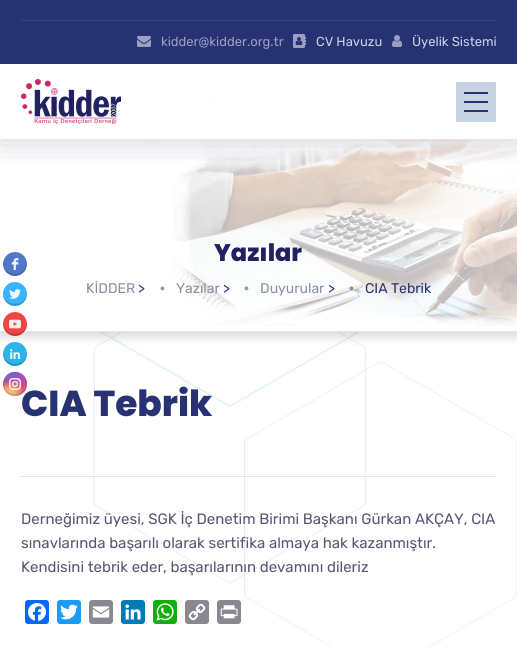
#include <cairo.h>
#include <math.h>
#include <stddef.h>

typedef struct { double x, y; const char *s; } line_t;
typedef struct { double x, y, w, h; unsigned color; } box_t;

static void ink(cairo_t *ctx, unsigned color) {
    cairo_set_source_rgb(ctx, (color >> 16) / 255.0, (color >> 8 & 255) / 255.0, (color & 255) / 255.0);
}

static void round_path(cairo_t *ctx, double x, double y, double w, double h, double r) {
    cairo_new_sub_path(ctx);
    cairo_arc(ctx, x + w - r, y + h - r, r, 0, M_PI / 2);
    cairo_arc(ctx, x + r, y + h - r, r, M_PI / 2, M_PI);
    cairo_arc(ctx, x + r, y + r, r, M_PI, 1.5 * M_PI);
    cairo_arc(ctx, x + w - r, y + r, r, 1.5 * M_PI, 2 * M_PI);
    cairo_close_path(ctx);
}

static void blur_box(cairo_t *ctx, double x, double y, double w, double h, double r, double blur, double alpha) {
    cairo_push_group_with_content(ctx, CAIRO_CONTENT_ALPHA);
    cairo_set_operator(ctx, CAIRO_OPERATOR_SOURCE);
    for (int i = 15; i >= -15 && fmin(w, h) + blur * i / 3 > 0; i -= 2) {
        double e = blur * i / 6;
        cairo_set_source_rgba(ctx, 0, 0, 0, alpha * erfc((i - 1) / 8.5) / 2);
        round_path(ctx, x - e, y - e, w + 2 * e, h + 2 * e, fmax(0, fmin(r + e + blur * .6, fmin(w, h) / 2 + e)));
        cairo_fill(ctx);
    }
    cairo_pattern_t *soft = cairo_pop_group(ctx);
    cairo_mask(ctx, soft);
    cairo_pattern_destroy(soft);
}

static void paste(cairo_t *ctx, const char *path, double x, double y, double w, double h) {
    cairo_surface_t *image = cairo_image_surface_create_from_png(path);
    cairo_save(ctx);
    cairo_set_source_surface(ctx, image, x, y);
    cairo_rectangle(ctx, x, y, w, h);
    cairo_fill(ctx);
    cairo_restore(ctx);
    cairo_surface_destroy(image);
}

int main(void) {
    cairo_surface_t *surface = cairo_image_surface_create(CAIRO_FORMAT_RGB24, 517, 647);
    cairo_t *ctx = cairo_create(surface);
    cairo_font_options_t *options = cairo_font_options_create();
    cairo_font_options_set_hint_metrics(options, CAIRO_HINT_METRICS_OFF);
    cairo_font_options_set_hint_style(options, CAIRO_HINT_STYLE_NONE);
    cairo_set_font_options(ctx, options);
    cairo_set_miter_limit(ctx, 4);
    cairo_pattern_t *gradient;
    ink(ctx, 0xFFFFFF);
    cairo_paint(ctx);
    paste(ctx, "media/1.png", 93, 64, 424, 583);
    ink(ctx, 0x000000);
    blur_box(ctx, 0, 144, 517, 193, 0, 5, 0.15);
    ink(ctx, 0xFFFFFF);
    cairo_rectangle(ctx, 0, 139, 517, 192);
    cairo_fill(ctx);
    paste(ctx, "media/11.png", 173, 139, 344, 187);
    cairo_save(ctx);
    cairo_rectangle(ctx, 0, 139, 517, 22);
    cairo_clip(ctx);
    ink(ctx, 0x020620);
    blur_box(ctx, 0, 64, 517, 75, 0, 17.5, 0.2);
    cairo_restore(ctx);
    cairo_set_source_rgba(ctx, 1, 1, 1, 0.9);
    cairo_rectangle(ctx, 1, 64, 515, 75);
    cairo_fill(ctx);
    paste(ctx, "media/2.png", 21, 79, 100, 45);
    {
        static const box_t items[] = {
            {456, 82, 40, 40, 0xC6D3E3},
            {464, 92, 24, 2, 0x273272},
            {464, 110, 24, 2, 0x273272},
            {464, 101, 24, 2, 0x273272},
            {0, 0, 517, 64, 0x273272},
            {21, 20, 475, 1, 0x39427E},
        };
        for (size_t i = 0; i < sizeof items / sizeof *items; i++) {
            ink(ctx, items[i].color);
            cairo_rectangle(ctx, items[i].x, items[i].y, items[i].w, items[i].h);
            cairo_fill(ctx);
        }
    }
    paste(ctx, "media/3.png", 137, 36, 14, 11);
    cairo_select_font_face(ctx, "Rubik", CAIRO_FONT_SLANT_NORMAL, CAIRO_FONT_WEIGHT_NORMAL);
    cairo_set_font_size(ctx, 13);
    ink(ctx, 0x9D9EC0);
    cairo_move_to(ctx, 161, 46);
    cairo_show_text(ctx, "kidder@kidder.org.tr");
    paste(ctx, "media/4.png", 293, 34, 13, 14);
    ink(ctx, 0xC6D3E3);
    cairo_move_to(ctx, 316, 46);
    cairo_show_text(ctx, "CV Havuzu");
    paste(ctx, "media/5.png", 392, 35, 10, 12);
    cairo_move_to(ctx, 412, 46);
    cairo_show_text(ctx, "Üyelik Sistemi");
    ink(ctx, 0x5177C6);
    cairo_new_path(ctx);
    cairo_arc(ctx, 15, 264, 12, 0, 2 * M_PI);
    cairo_fill(ctx);
    cairo_set_source_rgba(ctx, 0.102, 0.102, 0.102, 0.2);
    cairo_new_path(ctx);
    cairo_move_to(ctx, 27, 263);
    cairo_curve_to(ctx, 26, 277.5, 4, 277.5, 3, 263);
    cairo_curve_to(ctx, 3, 265.5, 3.5, 268.5, 5, 270.5);
    cairo_curve_to(ctx, 12, 281, 28, 275, 27, 263);
    cairo_close_path(ctx);
    cairo_fill(ctx);
    paste(ctx, "media/6.png", 11, 258, 8, 12);
    ink(ctx, 0x39B3FF);
    cairo_arc(ctx, 15, 294, 12, 0, 2 * M_PI);
    cairo_fill(ctx);
    cairo_set_source_rgba(ctx, 0.102, 0.102, 0.102, 0.2);
    cairo_new_path(ctx);
    cairo_move_to(ctx, 27, 293);
    cairo_curve_to(ctx, 26, 307.5, 4, 307.5, 3, 293);
    cairo_curve_to(ctx, 3, 295.5, 3.5, 298.5, 5, 300.5);
    cairo_curve_to(ctx, 12, 311, 28, 305, 27, 293);
    cairo_close_path(ctx);
    cairo_fill(ctx);
    paste(ctx, "media/7.png", 9, 289, 12, 10);
    ink(ctx, 0xE6E6E9);
    cairo_rectangle(ctx, 0, 331, 517, 1);
    cairo_fill(ctx);
    cairo_set_source_rgba(ctx, 0.933, 0.192, 0.188, 0.9);
    cairo_arc(ctx, 15, 324, 12, 0, 2 * M_PI);
    cairo_fill(ctx);
    cairo_set_source_rgba(ctx, 0, 0, 0, 0.18);
    cairo_new_path(ctx);
    cairo_move_to(ctx, 27, 323);
    cairo_curve_to(ctx, 26, 337.5, 4, 337.5, 3, 323);
    cairo_curve_to(ctx, 3, 325.5, 3.5, 328.5, 5, 330.5);
    cairo_curve_to(ctx, 12, 341, 28, 335, 27, 323);
    cairo_close_path(ctx);
    cairo_fill(ctx);
    paste(ctx, "media/8.png", 9, 319, 12, 10);
    cairo_set_source_rgba(ctx, 0.082, 0.675, 0.898, 0.9);
    cairo_arc(ctx, 15, 354, 12, 0, 2 * M_PI);
    cairo_fill(ctx);
    cairo_set_source_rgba(ctx, 0.102, 0.102, 0.102, 0.2);
    cairo_new_path(ctx);
    cairo_move_to(ctx, 27, 353);
    cairo_curve_to(ctx, 26, 367.5, 4, 367.5, 3, 353);
    cairo_curve_to(ctx, 3, 355.5, 3.5, 358.5, 5, 360.5);
    cairo_curve_to(ctx, 12, 371, 28, 365, 27, 353);
    cairo_close_path(ctx);
    cairo_fill(ctx);
    paste(ctx, "media/9.png", 10, 349, 10, 10);
    cairo_select_font_face(ctx, "Poppins ExtraBold", CAIRO_FONT_SLANT_NORMAL, CAIRO_FONT_WEIGHT_NORMAL);
    cairo_set_font_size(ctx, 36);
    ink(ctx, 0x273272);
    cairo_move_to(ctx, 21, 416);
    cairo_show_text(ctx, "CIA Tebrik");
    gradient = cairo_pattern_create_linear(15, 372, 15, 396);
    cairo_pattern_add_color_stop_rgba(gradient, 0, 0.455, 0.416, 0.812, 1);
    cairo_pattern_add_color_stop_rgba(gradient, 0.3, 0.765, 0.275, 0.604, 1);
    cairo_pattern_add_color_stop_rgba(gradient, 0.5, 0.902, 0.322, 0.435, 1);
    cairo_pattern_add_color_stop_rgba(gradient, 0.7, 0.973, 0.518, 0.298, 1);
    cairo_pattern_add_color_stop_rgba(gradient, 1, 0.996, 0.8, 0.486, 1);
    cairo_set_source(ctx, gradient);
    cairo_pattern_destroy(gradient);
    cairo_new_path(ctx);
    cairo_arc(ctx, 15, 384, 12, 0, 2 * M_PI);
    cairo_fill(ctx);
    gradient = cairo_pattern_create_radial(27, 396, 0, 27, 396, 34);
    cairo_pattern_add_color_stop_rgba(gradient, 0, 0.867, 0.275, 0.529, 1);
    cairo_pattern_add_color_stop_rgba(gradient, 1, 0.867, 0.275, 0.529, 0);
    cairo_set_source(ctx, gradient);
    cairo_pattern_destroy(gradient);
    cairo_arc(ctx, 15, 384, 12, 0, 2 * M_PI);
    cairo_fill(ctx);
    gradient = cairo_pattern_create_radial(0, 0, 0, 0, 0, 1);
    cairo_pattern_set_matrix(gradient, &(cairo_matrix_t){1.0 / 20, 0, 0, 1.0 / 41, -1.0 * 17 / 20, -1.0 * 367 / 41});
    cairo_pattern_add_color_stop_rgba(gradient, 0, 0.584, 0.314, 0.784, 1);
    cairo_pattern_add_color_stop_rgba(gradient, 0.5, 0.584, 0.314, 0.784, 0);
    cairo_set_source(ctx, gradient);
    cairo_pattern_destroy(gradient);
    cairo_arc(ctx, 15, 384, 12, 0, 2 * M_PI);
    cairo_fill(ctx);
    gradient = cairo_pattern_create_radial(27, 372, 0, 27, 372, 34);
    cairo_pattern_add_color_stop_rgba(gradient, 0, 0.584, 0.314, 0.784, 1);
    cairo_pattern_add_color_stop_rgba(gradient, 0.5, 0.584, 0.314, 0.784, 0);
    cairo_set_source(ctx, gradient);
    cairo_pattern_destroy(gradient);
    cairo_arc(ctx, 15, 384, 12, 0, 2 * M_PI);
    cairo_fill(ctx);
    gradient = cairo_pattern_create_radial(0, 0, 0, 0, 0, 1);
    cairo_pattern_set_matrix(gradient, &(cairo_matrix_t){1.0 / 27, 0, 0, 1.0 / 51, -1.0 * 7.8 / 27, -1.0 * 360 / 51});
    cairo_pattern_add_color_stop_rgba(gradient, 0, 0.388, 0.412, 0.831, 1);
    cairo_pattern_add_color_stop_rgba(gradient, 0.5, 0.388, 0.412, 0.831, 0);
    cairo_set_source(ctx, gradient);
    cairo_pattern_destroy(gradient);
    cairo_arc(ctx, 15, 384, 12, 0, 2 * M_PI);
    cairo_fill(ctx);
    gradient = cairo_pattern_create_radial(0, 0, 0, 0, 0, 1);
    cairo_pattern_set_matrix(gradient, &(cairo_matrix_t){1.0 / 34, 0, 0, 1.0 / 42, -1.0 * 3 / 34, -1.0 * 366 / 42});
    cairo_pattern_add_color_stop_rgba(gradient, 0, 0.388, 0.412, 0.831, 1);
    cairo_pattern_add_color_stop_rgba(gradient, 0.5, 0.388, 0.412, 0.831, 0);
    cairo_set_source(ctx, gradient);
    cairo_pattern_destroy(gradient);
    cairo_arc(ctx, 15, 384, 12, 0, 2 * M_PI);
    cairo_fill(ctx);
    gradient = cairo_pattern_create_radial(3, 406, 0, 3, 406, 41);
    cairo_pattern_add_color_stop_rgba(gradient, 0, 0.996, 0.796, 0.455, 1);
    cairo_pattern_add_color_stop_rgba(gradient, 0.5, 0.996, 0.796, 0.455, 0);
    cairo_set_source(ctx, gradient);
    cairo_pattern_destroy(gradient);
    cairo_arc(ctx, 15, 384, 12, 0, 2 * M_PI);
    cairo_fill(ctx);
    gradient = cairo_pattern_create_radial(11, 394, 0, 11, 394, 27);
    cairo_pattern_add_color_stop_rgba(gradient, 0, 0.996, 0.796, 0.455, 1);
    cairo_pattern_add_color_stop_rgba(gradient, 0.5, 0.996, 0.796, 0.455, 0);
    cairo_set_source(ctx, gradient);
    cairo_pattern_destroy(gradient);
    cairo_arc(ctx, 15, 384, 12, 0, 2 * M_PI);
    cairo_fill(ctx);
    cairo_set_source_rgba(ctx, 0.102, 0.102, 0.102, 0.2);
    cairo_new_path(ctx);
    cairo_move_to(ctx, 27, 383);
    cairo_curve_to(ctx, 26, 397.5, 4, 397.5, 3, 383);
    cairo_curve_to(ctx, 3, 385.5, 3.5, 388.5, 5, 390.5);
    cairo_curve_to(ctx, 12, 401, 28, 395, 27, 383);
    cairo_close_path(ctx);
    cairo_fill(ctx);
    paste(ctx, "media/10.png", 9, 378, 12, 12);
    cairo_set_font_size(ctx, 24);
    ink(ctx, 0x212060);
    cairo_move_to(ctx, 214, 261);
    cairo_show_text(ctx, "Yazılar");
    cairo_select_font_face(ctx, "Rubik", CAIRO_FONT_SLANT_NORMAL, CAIRO_FONT_WEIGHT_NORMAL);
    cairo_set_font_size(ctx, 14);
    ink(ctx, 0x8D8EA3);
    cairo_move_to(ctx, 86, 293);
    cairo_show_text(ctx, "KİDDER");
    ink(ctx, 0x273272);
    cairo_move_to(ctx, 138, 293);
    cairo_show_text(ctx, ">");
    cairo_set_font_size(ctx, 18);
    ink(ctx, 0x9399B9);
    cairo_move_to(ctx, 159, 294);
    cairo_show_text(ctx, "•");
    cairo_set_font_size(ctx, 14);
    ink(ctx, 0x8D8EA3);
    cairo_move_to(ctx, 176, 293);
    cairo_show_text(ctx, "Yazılar");
    ink(ctx, 0x273272);
    cairo_move_to(ctx, 223, 293);
    cairo_show_text(ctx, ">");
    cairo_set_font_size(ctx, 18);
    ink(ctx, 0x9399B9);
    cairo_move_to(ctx, 243, 294);
    cairo_show_text(ctx, "•");
    cairo_set_font_size(ctx, 14);
    ink(ctx, 0x8D8EA3);
    cairo_move_to(ctx, 260, 293);
    cairo_show_text(ctx, "Duyurular");
    ink(ctx, 0x273272);
    cairo_move_to(ctx, 328, 293);
    cairo_show_text(ctx, ">");
    cairo_set_font_size(ctx, 18);
    ink(ctx, 0x888DAD);
    cairo_move_to(ctx, 348, 294);
    cairo_show_text(ctx, "•");
    cairo_set_font_size(ctx, 14);
    ink(ctx, 0x273272);
    cairo_move_to(ctx, 365, 293);
    cairo_show_text(ctx, "CIA Tebrik");
    cairo_set_source_rgba(ctx, 0.008, 0.024, 0.125, 0.1);
    cairo_rectangle(ctx, 21, 476, 475, 1);
    cairo_fill(ctx);
    cairo_set_font_size(ctx, 15);
    ink(ctx, 0x565872);
    {
        static const line_t items[] = {
            {21, 524, "Derneğimiz üyesi, SGK İç Denetim Birimi Başkanı Gürkan AKÇAY, CIA"},
            {21, 548, "sınavlarında başarılı olarak sertifika almaya hak kazanmıştır."},
            {21, 572, "Kendisini tebrik eder, başarılarının devamını dileriz"},
        };
        for (size_t i = 0; i < sizeof items / sizeof *items; i++) {
            cairo_move_to(ctx, items[i].x, items[i].y);
            cairo_show_text(ctx, items[i].s);
        }
    }
    ink(ctx, 0x0866FF);
    round_path(ctx, 25, 600, 24, 24, 3);
    cairo_fill(ctx);
    paste(ctx, "media/12.png", 28, 603, 18, 18);
    ink(ctx, 0x1D9BF0);
    round_path(ctx, 57, 600, 24, 24, 3);
    cairo_fill(ctx);
    paste(ctx, "media/13.png", 60, 604, 18, 16);
    ink(ctx, 0x888990);
    round_path(ctx, 89, 600, 24, 24, 3);
    cairo_fill(ctx);
    paste(ctx, "media/14.png", 92, 606, 18, 12);
    ink(ctx, 0x007BB5);
    round_path(ctx, 121, 600, 24, 24, 3);
    cairo_fill(ctx);
    paste(ctx, "media/15.png", 125, 604, 16, 16);
    ink(ctx, 0x12AF0A);
    round_path(ctx, 153, 600, 24, 24, 3);
    cairo_fill(ctx);
    paste(ctx, "media/16.png", 156, 603, 18, 18);
    ink(ctx, 0x888990);
    round_path(ctx, 185, 600, 24, 24, 3);
    cairo_fill(ctx);
    paste(ctx, "media/17.png", 188, 603, 18, 18);
    round_path(ctx, 217, 600, 24, 24, 3);
    cairo_fill(ctx);
    paste(ctx, "media/18.png", 220, 605, 18, 14);
    cairo_surface_write_to_png(surface, "image.png");
    cairo_font_options_destroy(options);
    cairo_destroy(ctx);
    cairo_surface_destroy(surface);
    return 0;
}
